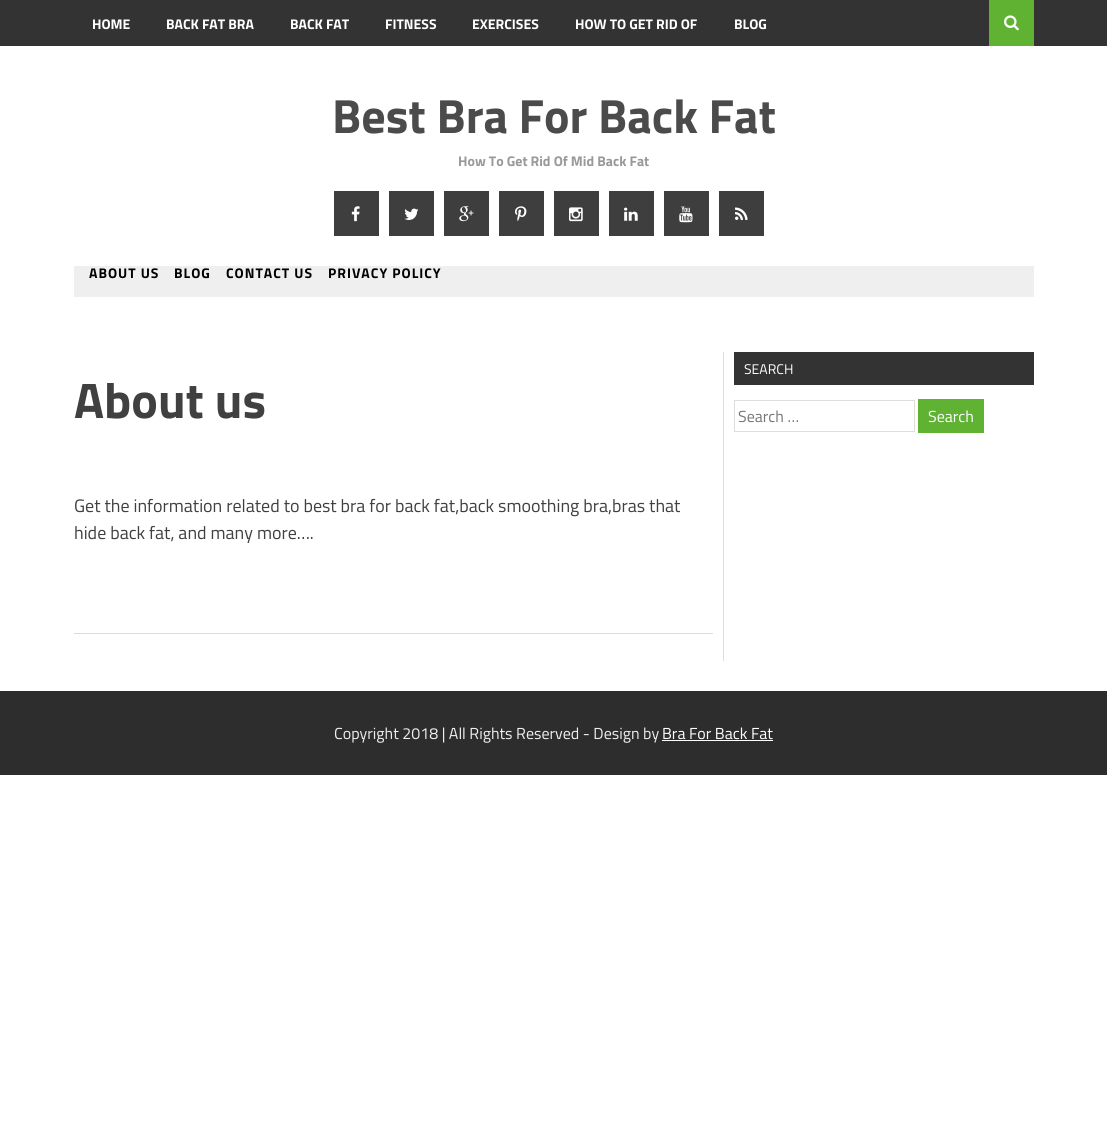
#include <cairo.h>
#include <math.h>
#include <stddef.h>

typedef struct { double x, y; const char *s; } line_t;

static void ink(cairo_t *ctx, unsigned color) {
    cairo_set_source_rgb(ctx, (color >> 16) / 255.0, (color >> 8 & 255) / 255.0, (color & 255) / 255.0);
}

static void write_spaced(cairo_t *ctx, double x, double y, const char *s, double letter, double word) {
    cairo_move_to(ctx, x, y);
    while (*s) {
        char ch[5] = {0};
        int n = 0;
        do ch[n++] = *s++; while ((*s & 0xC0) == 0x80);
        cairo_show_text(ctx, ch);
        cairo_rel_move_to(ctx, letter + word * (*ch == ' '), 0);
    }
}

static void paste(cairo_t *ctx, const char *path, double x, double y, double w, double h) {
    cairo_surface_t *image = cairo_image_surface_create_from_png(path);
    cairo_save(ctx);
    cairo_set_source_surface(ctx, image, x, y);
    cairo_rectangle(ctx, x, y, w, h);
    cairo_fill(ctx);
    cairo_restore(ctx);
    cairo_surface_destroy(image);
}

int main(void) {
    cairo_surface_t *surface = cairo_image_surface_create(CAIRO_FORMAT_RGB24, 1107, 1142);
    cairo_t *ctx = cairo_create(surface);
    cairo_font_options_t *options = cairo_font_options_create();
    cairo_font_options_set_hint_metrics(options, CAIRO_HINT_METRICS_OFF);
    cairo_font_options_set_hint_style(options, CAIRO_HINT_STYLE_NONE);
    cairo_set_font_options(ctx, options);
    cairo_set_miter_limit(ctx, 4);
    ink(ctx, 0xFFFFFF);
    cairo_paint(ctx);
    ink(ctx, 0x333333);
    cairo_rectangle(ctx, 0, 0, 1107, 46);
    cairo_fill(ctx);
    cairo_select_font_face(ctx, "Titillium Web", CAIRO_FONT_SLANT_NORMAL, CAIRO_FONT_WEIGHT_BOLD);
    cairo_set_font_size(ctx, 14);
    ink(ctx, 0xFFFFFF);
    {
        static const line_t items[] = {
            {92, 29, "HOME"},
            {166, 29, "BACK FAT BRA"},
            {290, 29, "BACK FAT"},
            {385, 29, "FITNESS"},
            {472, 29, "EXERCISES"},
            {575, 29, "HOW TO GET RID OF"},
            {734, 29, "BLOG"},
        };
        for (size_t i = 0; i < sizeof items / sizeof *items; i++) {
            cairo_move_to(ctx, items[i].x, items[i].y);
            cairo_show_text(ctx, items[i].s);
        }
    }
    ink(ctx, 0x60B233);
    cairo_rectangle(ctx, 989, 0, 45, 46);
    cairo_fill(ctx);
    paste(ctx, "media/1.png", 1004, 15, 15, 16);
    cairo_set_font_size(ctx, 48);
    ink(ctx, 0x4B4B4B);
    cairo_move_to(ctx, 332, 133);
    cairo_show_text(ctx, "Best Bra For Back Fat");
    cairo_set_font_size(ctx, 14);
    ink(ctx, 0x999999);
    cairo_move_to(ctx, 458, 166);
    cairo_show_text(ctx, "How To Get Rid Of Mid Back Fat");
    ink(ctx, 0x3E3E3E);
    cairo_rectangle(ctx, 334, 191, 45, 45);
    cairo_fill(ctx);
    paste(ctx, "media/2.png", 351, 206, 9, 16);
    cairo_rectangle(ctx, 389, 191, 45, 45);
    cairo_fill(ctx);
    paste(ctx, "media/3.png", 404, 208, 15, 12);
    cairo_rectangle(ctx, 444, 191, 45, 45);
    cairo_fill(ctx);
    paste(ctx, "media/4.png", 459, 206, 15, 16);
    cairo_rectangle(ctx, 499, 191, 45, 45);
    cairo_fill(ctx);
    paste(ctx, "media/5.png", 515, 206, 12, 16);
    cairo_rectangle(ctx, 554, 191, 45, 45);
    cairo_fill(ctx);
    paste(ctx, "media/6.png", 569, 207, 14, 15);
    cairo_rectangle(ctx, 609, 191, 45, 45);
    cairo_fill(ctx);
    paste(ctx, "media/7.png", 624, 207, 14, 14);
    cairo_rectangle(ctx, 664, 191, 45, 45);
    cairo_fill(ctx);
    paste(ctx, "media/8.png", 679, 206, 14, 17);
    cairo_rectangle(ctx, 719, 191, 45, 45);
    cairo_fill(ctx);
    paste(ctx, "media/9.png", 735, 207, 13, 13);
    ink(ctx, 0xEFEFEF);
    cairo_rectangle(ctx, 74, 266, 960, 31);
    cairo_fill(ctx);
    ink(ctx, 0x000000);
    {
        static const line_t items[] = {
            {89, 278, "ABOUT US"},
            {174, 278, "BLOG"},
            {226, 278, "CONTACT US"},
            {328, 278, "PRIVACY POLICY"},
        };
        for (size_t i = 0; i < sizeof items / sizeof *items; i++) {
            write_spaced(ctx, items[i].x, items[i].y, items[i].s, 1, 0);
        }
    }
    ink(ctx, 0xDDDDDD);
    cairo_rectangle(ctx, 723, 352, 1, 309);
    cairo_fill(ctx);
    cairo_rectangle(ctx, 74, 633, 639, 1);
    cairo_fill(ctx);
    cairo_set_font_size(ctx, 50);
    ink(ctx, 0x404040);
    cairo_move_to(ctx, 74, 418);
    cairo_show_text(ctx, "About us");
    cairo_select_font_face(ctx, "Titillium Web", CAIRO_FONT_SLANT_NORMAL, CAIRO_FONT_WEIGHT_NORMAL);
    cairo_set_font_size(ctx, 18);
    cairo_move_to(ctx, 74, 512);
    cairo_show_text(ctx, "Get the information related to best bra for back fat,back smoothing bra,bras that");
    cairo_move_to(ctx, 74, 539);
    cairo_show_text(ctx, "hide back fat, and many more….");
    ink(ctx, 0x333333);
    cairo_rectangle(ctx, 734, 352, 300, 33);
    cairo_fill(ctx);
    cairo_set_font_size(ctx, 14);
    ink(ctx, 0xFFFFFF);
    cairo_move_to(ctx, 744, 374);
    cairo_show_text(ctx, "SEARCH");
    cairo_rectangle(ctx, 734.5, 400.5, 180, 31);
    ink(ctx, 0xDDDDDD);
    cairo_set_line_width(ctx, 1);
    cairo_stroke(ctx);
    cairo_set_font_size(ctx, 16);
    ink(ctx, 0x757575);
    cairo_move_to(ctx, 738, 422);
    cairo_show_text(ctx, "Search …");
    ink(ctx, 0x60B233);
    cairo_rectangle(ctx, 918, 399, 66, 34);
    cairo_fill(ctx);
    ink(ctx, 0xFFFFFF);
    cairo_move_to(ctx, 928, 422);
    cairo_show_text(ctx, "Search");
    ink(ctx, 0x2D2D2D);
    cairo_rectangle(ctx, 0, 691, 1107, 84);
    cairo_fill(ctx);
    ink(ctx, 0xEFEFEF);
    cairo_move_to(ctx, 334, 739);
    cairo_show_text(ctx, "Copyright 2018 | All Rights Reserved - Design by");
    ink(ctx, 0xFFFFFF);
    cairo_move_to(ctx, 662, 739);
    cairo_show_text(ctx, "Bra For Back Fat");
    cairo_rectangle(ctx, 662, 740, 111, 1);
    cairo_fill(ctx);
    cairo_surface_write_to_png(surface, "image.png");
    cairo_font_options_destroy(options);
    cairo_destroy(ctx);
    cairo_surface_destroy(surface);
    return 0;
}
